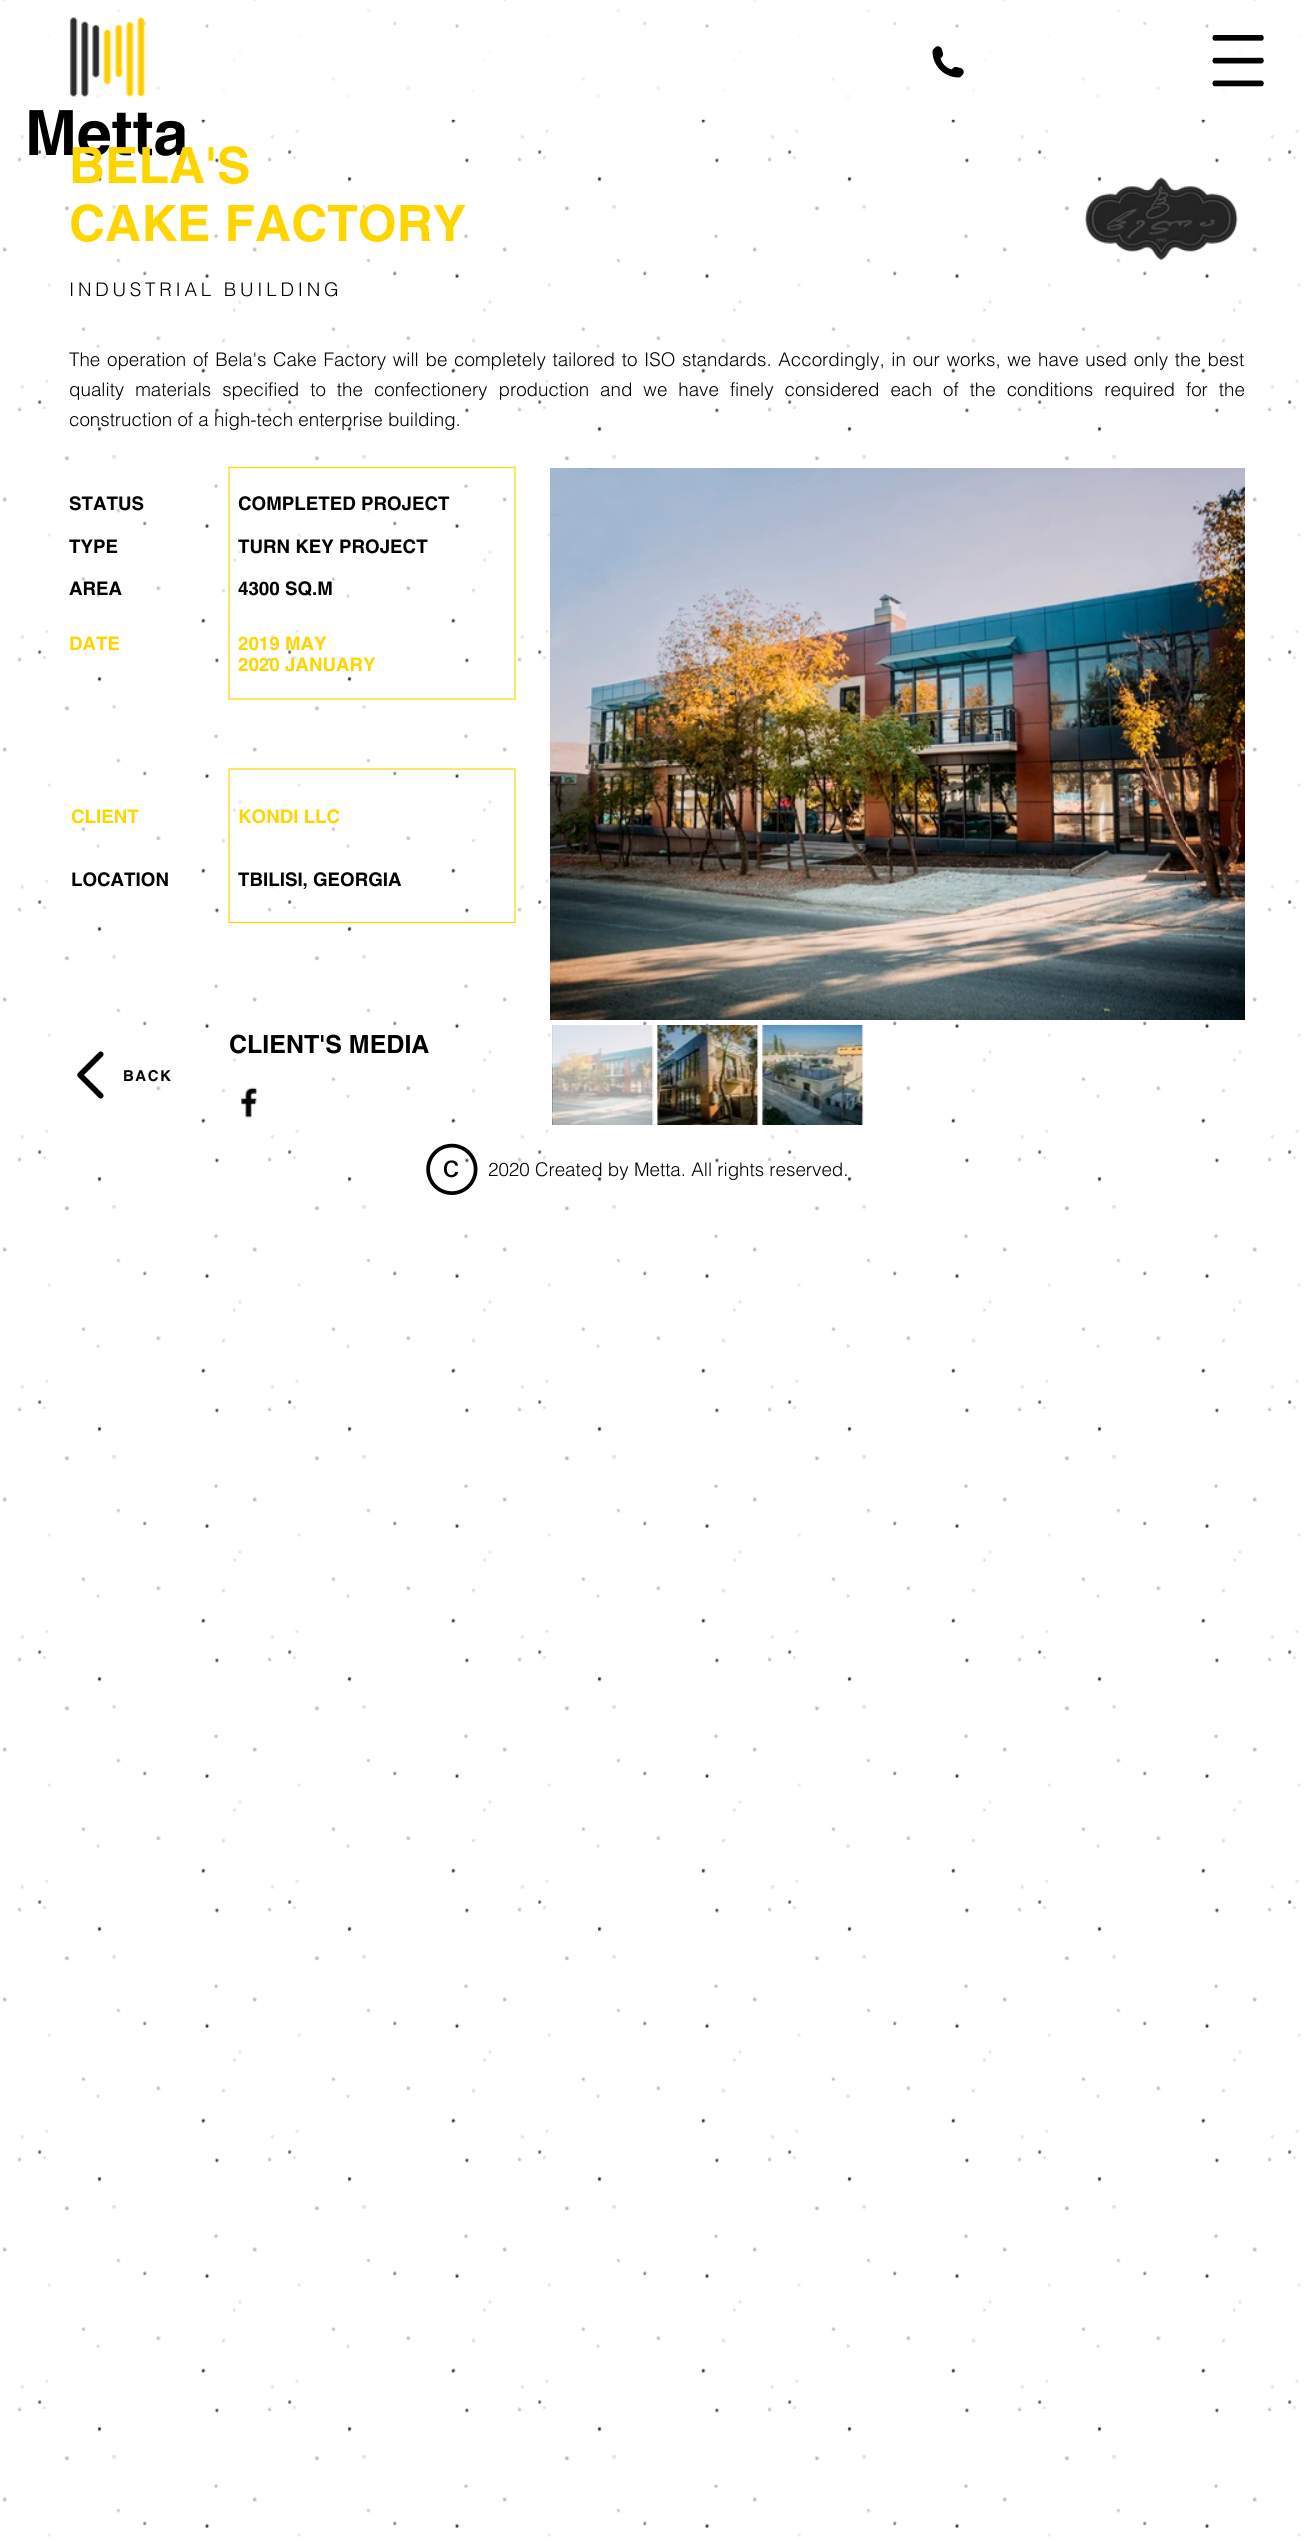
#include <cairo.h>
#include <math.h>
#include <stddef.h>

typedef struct { double x, y; const char *s; } line_t;

static void ink(cairo_t *ctx, unsigned color) {
    cairo_set_source_rgb(ctx, (color >> 16) / 255.0, (color >> 8 & 255) / 255.0, (color & 255) / 255.0);
}

static void write_spaced(cairo_t *ctx, double x, double y, const char *s, double letter, double word) {
    cairo_move_to(ctx, x, y);
    while (*s) {
        char ch[5] = {0};
        int n = 0;
        do ch[n++] = *s++; while ((*s & 0xC0) == 0x80);
        cairo_show_text(ctx, ch);
        cairo_rel_move_to(ctx, letter + word * (*ch == ' '), 0);
    }
}

static void paste(cairo_t *ctx, const char *path, double x, double y, double w, double h) {
    cairo_surface_t *image = cairo_image_surface_create_from_png(path);
    cairo_save(ctx);
    cairo_set_source_surface(ctx, image, x, y);
    cairo_rectangle(ctx, x, y, w, h);
    cairo_fill(ctx);
    cairo_restore(ctx);
    cairo_surface_destroy(image);
}

int main(void) {
    cairo_surface_t *surface = cairo_image_surface_create(CAIRO_FORMAT_RGB24, 1313, 2540);
    cairo_t *ctx = cairo_create(surface);
    cairo_font_options_t *options = cairo_font_options_create();
    cairo_font_options_set_hint_metrics(options, CAIRO_HINT_METRICS_OFF);
    cairo_font_options_set_hint_style(options, CAIRO_HINT_STYLE_NONE);
    cairo_set_font_options(ctx, options);
    cairo_set_miter_limit(ctx, 4);
    ink(ctx, 0xFFFFFF);
    cairo_paint(ctx);
    paste(ctx, "media/1.png", 2, 0, 1299, 2537);
    cairo_set_source_rgba(ctx, 1, 1, 1, 0.7);
    cairo_rectangle(ctx, 3, 0, 1298, 120);
    cairo_fill(ctx);
    paste(ctx, "media/2.png", 932, 46, 32, 32);
    paste(ctx, "media/3.png", 1212, 35, 52, 52);
    paste(ctx, "media/4.png", 69, 17, 77, 80);
    cairo_select_font_face(ctx, "helvetica", CAIRO_FONT_SLANT_NORMAL, CAIRO_FONT_WEIGHT_BOLD);
    cairo_set_font_size(ctx, 62.5);
    ink(ctx, 0x000000);
    cairo_move_to(ctx, 25, 155);
    cairo_show_text(ctx, "Metta");
    cairo_set_font_size(ctx, 50);
    ink(ctx, 0xFFD500);
    cairo_move_to(ctx, 69, 183);
    cairo_show_text(ctx, "BELA'S");
    cairo_move_to(ctx, 69, 241);
    cairo_show_text(ctx, "CAKE FACTORY");
    cairo_select_font_face(ctx, "helvetica Light", CAIRO_FONT_SLANT_NORMAL, CAIRO_FONT_WEIGHT_NORMAL);
    cairo_set_font_size(ctx, 18.75);
    ink(ctx, 0x000000);
    write_spaced(ctx, 69, 296, "INDUSTRIAL BUILDING", 3.75, 0);
    paste(ctx, "media/5.png", 1085, 177, 153, 84);
    write_spaced(ctx, 69, 366, "The operation of Bela's Cake Factory will be completely tailored to ISO standards. Accordingly, in our works, we have used only the best", 0, 1.5);
    write_spaced(ctx, 69, 396, "quality materials specified to the confectionery production and we have finely considered each of the conditions required for the", 0, 5.75);
    cairo_move_to(ctx, 69, 426);
    cairo_show_text(ctx, "construction of a high-tech enterprise building.");
    cairo_select_font_face(ctx, "helvetica", CAIRO_FONT_SLANT_NORMAL, CAIRO_FONT_WEIGHT_BOLD);
    cairo_move_to(ctx, 69, 510);
    cairo_show_text(ctx, "STATUS");
    cairo_new_path(ctx);
    cairo_move_to(ctx, 515, 467.5);
    cairo_line_to(ctx, 515, 699);
    cairo_line_to(ctx, 229, 699);
    cairo_line_to(ctx, 229, 467.5);
    cairo_close_path(ctx);
    ink(ctx, 0xFFD500);
    cairo_set_line_width(ctx, 1.2);
    cairo_stroke(ctx);
    ink(ctx, 0x000000);
    {
        static const line_t items[] = {
            {238, 510, "COMPLETED PROJECT"},
            {238, 553, "TURN KEY PROJECT"},
            {238, 595, "4300 SQ.M"},
        };
        for (size_t i = 0; i < sizeof items / sizeof *items; i++) {
            cairo_move_to(ctx, items[i].x, items[i].y);
            cairo_show_text(ctx, items[i].s);
        }
    }
    ink(ctx, 0xFFD500);
    cairo_move_to(ctx, 238, 650);
    cairo_show_text(ctx, "2019 MAY");
    cairo_move_to(ctx, 238, 671);
    cairo_show_text(ctx, "2020 JANUARY");
    paste(ctx, "media/6.png", 550, 468, 695, 552);
    ink(ctx, 0xFFFFFF);
    cairo_rectangle(ctx, 581, 1025, 65, 74);
    cairo_fill(ctx);
    paste(ctx, "media/7.png", 552, 1025, 102, 100);
    cairo_set_source_rgba(ctx, 1, 1, 1, 0.6);
    cairo_rectangle(ctx, 553, 1025, 100, 100);
    cairo_fill(ctx);
    ink(ctx, 0xFFFFFF);
    cairo_rectangle(ctx, 658, 1025, 84, 98);
    cairo_fill(ctx);
    paste(ctx, "media/8.png", 657, 1025, 102, 100);
    cairo_rectangle(ctx, 797, 1033, 54, 66);
    cairo_fill(ctx);
    paste(ctx, "media/9.png", 762, 1025, 102, 100);
    ink(ctx, 0x000000);
    cairo_move_to(ctx, 69, 553);
    cairo_show_text(ctx, "TYPE");
    cairo_move_to(ctx, 69, 595);
    cairo_show_text(ctx, "AREA");
    ink(ctx, 0xFFD500);
    cairo_move_to(ctx, 69, 650);
    cairo_show_text(ctx, "DATE");
    cairo_move_to(ctx, 71, 823);
    cairo_show_text(ctx, "CLIENT");
    ink(ctx, 0x000000);
    cairo_move_to(ctx, 71, 886);
    cairo_show_text(ctx, "LOCATION");
    cairo_new_path(ctx);
    cairo_move_to(ctx, 515, 769);
    cairo_line_to(ctx, 515, 922.5);
    cairo_line_to(ctx, 229, 922.5);
    cairo_line_to(ctx, 229, 769);
    cairo_close_path(ctx);
    ink(ctx, 0xFFD500);
    cairo_stroke(ctx);
    cairo_move_to(ctx, 238, 823);
    cairo_show_text(ctx, "KONDI LLC");
    ink(ctx, 0x000000);
    cairo_move_to(ctx, 238, 886);
    cairo_show_text(ctx, "TBILISI, GEORGIA");
    cairo_set_font_size(ctx, 25);
    cairo_move_to(ctx, 229, 1053);
    cairo_show_text(ctx, "CLIENT'S MEDIA");
    paste(ctx, "media/10.png", 241, 1087, 17, 31);
    paste(ctx, "media/11.png", 77, 1051, 27, 48);
    cairo_set_font_size(ctx, 15);
    write_spaced(ctx, 123, 1081, "BACK", 1.5, 0);
    paste(ctx, "media/12.png", 426, 1143, 52, 52);
    cairo_select_font_face(ctx, "helvetica Light", CAIRO_FONT_SLANT_NORMAL, CAIRO_FONT_WEIGHT_NORMAL);
    cairo_set_font_size(ctx, 18.75);
    cairo_move_to(ctx, 488, 1176);
    cairo_show_text(ctx, "2020 Created by Metta. All rights reserved.");
    cairo_surface_write_to_png(surface, "image.png");
    cairo_font_options_destroy(options);
    cairo_destroy(ctx);
    cairo_surface_destroy(surface);
    return 0;
}
